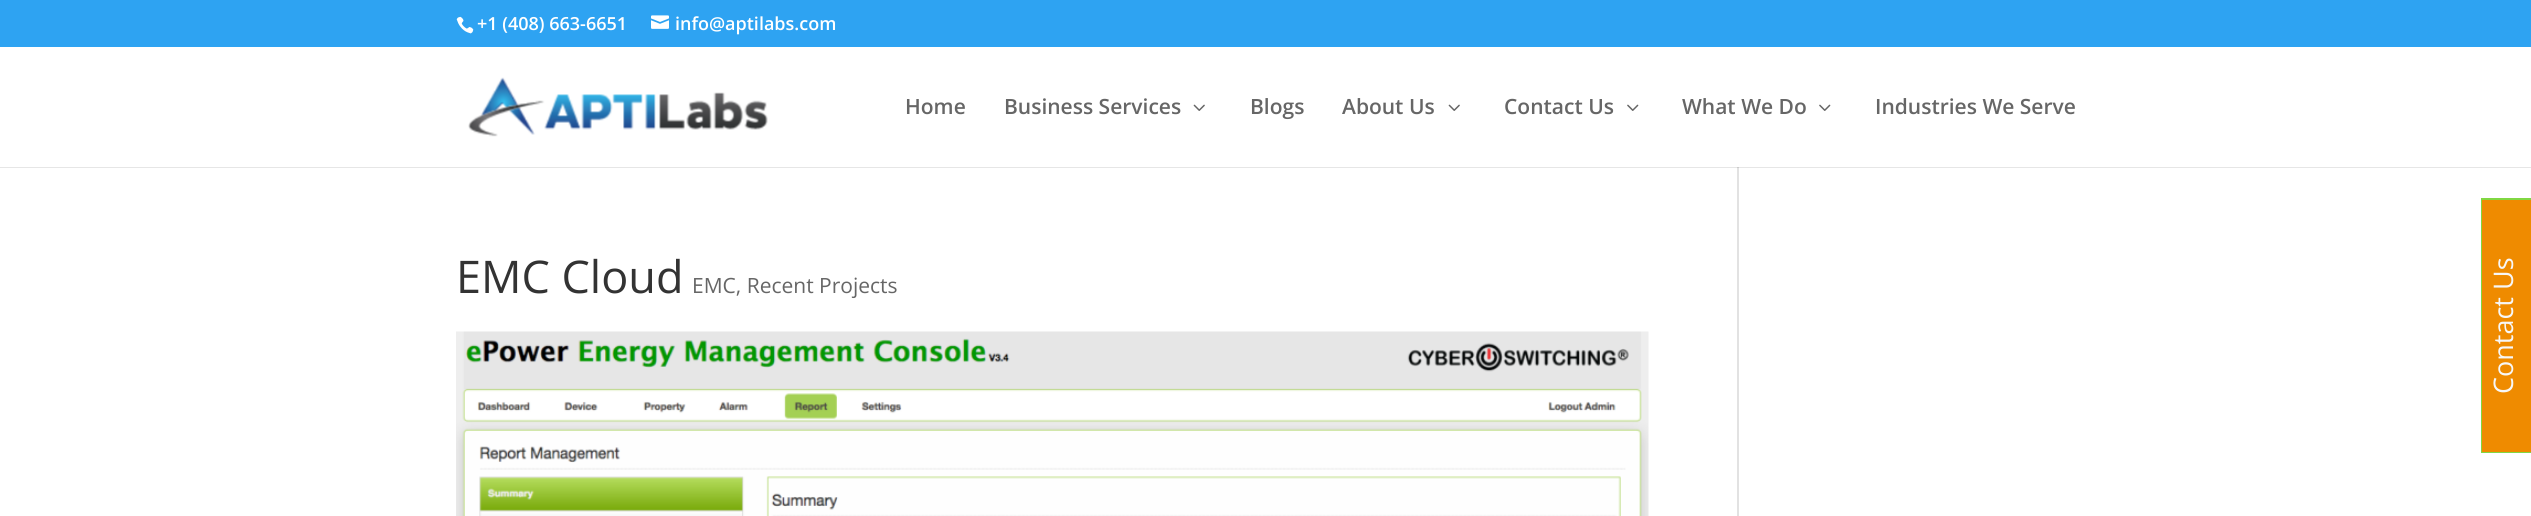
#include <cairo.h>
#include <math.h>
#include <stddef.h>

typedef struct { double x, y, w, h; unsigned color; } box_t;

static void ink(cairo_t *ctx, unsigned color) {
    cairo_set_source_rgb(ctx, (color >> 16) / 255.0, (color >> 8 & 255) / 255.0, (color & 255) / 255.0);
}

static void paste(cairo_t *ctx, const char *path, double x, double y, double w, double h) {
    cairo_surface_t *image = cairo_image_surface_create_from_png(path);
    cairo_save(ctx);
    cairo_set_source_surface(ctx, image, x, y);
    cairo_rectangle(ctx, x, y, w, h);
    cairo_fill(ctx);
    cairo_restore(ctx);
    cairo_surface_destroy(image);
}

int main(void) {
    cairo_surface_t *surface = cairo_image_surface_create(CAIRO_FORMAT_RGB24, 2531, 516);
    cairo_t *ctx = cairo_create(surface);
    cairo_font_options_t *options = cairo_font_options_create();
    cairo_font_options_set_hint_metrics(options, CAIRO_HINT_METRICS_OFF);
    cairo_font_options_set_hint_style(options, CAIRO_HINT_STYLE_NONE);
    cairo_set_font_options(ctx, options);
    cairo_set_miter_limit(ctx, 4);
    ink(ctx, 0xFFFFFF);
    cairo_paint(ctx);
    ink(ctx, 0xE6E6E6);
    cairo_rectangle(ctx, 0, 167, 2531, 1);
    cairo_fill(ctx);
    ink(ctx, 0x2EA3F2);
    cairo_rectangle(ctx, 0, 0, 2531, 47);
    cairo_fill(ctx);
    paste(ctx, "media/1.png", 456, 16, 18, 18);
    cairo_select_font_face(ctx, "Open Sans SemiBold", CAIRO_FONT_SLANT_NORMAL, CAIRO_FONT_WEIGHT_NORMAL);
    cairo_set_font_size(ctx, 18);
    ink(ctx, 0xFFFFFF);
    cairo_move_to(ctx, 477, 30);
    cairo_show_text(ctx, "+1 (408) 663-6651");
    paste(ctx, "media/2.png", 651, 15, 18, 14);
    cairo_move_to(ctx, 675, 30);
    cairo_show_text(ctx, "info@aptilabs.com");
    paste(ctx, "media/3.png", 468, 77, 300, 60);
    cairo_set_font_size(ctx, 21);
    ink(ctx, 0x666666);
    cairo_move_to(ctx, 905, 114);
    cairo_show_text(ctx, "Home");
    cairo_move_to(ctx, 1004, 114);
    cairo_show_text(ctx, "Business Services");
    paste(ctx, "media/4.png", 1193, 104, 12, 7);
    cairo_move_to(ctx, 1250, 114);
    cairo_show_text(ctx, "Blogs");
    cairo_move_to(ctx, 1342, 114);
    cairo_show_text(ctx, "About Us");
    paste(ctx, "media/4.png", 1448, 104, 12, 7);
    cairo_move_to(ctx, 1504, 114);
    cairo_show_text(ctx, "Contact Us");
    paste(ctx, "media/5.png", 1627, 104, 12, 7);
    cairo_move_to(ctx, 1682, 114);
    cairo_show_text(ctx, "What We Do");
    paste(ctx, "media/5.png", 1819, 104, 12, 7);
    cairo_move_to(ctx, 1875, 114);
    cairo_show_text(ctx, "Industries We Serve");
    cairo_select_font_face(ctx, "Open Sans", CAIRO_FONT_SLANT_NORMAL, CAIRO_FONT_WEIGHT_NORMAL);
    cairo_set_font_size(ctx, 45);
    ink(ctx, 0x333333);
    cairo_move_to(ctx, 456, 293);
    cairo_show_text(ctx, "EMC Cloud");
    cairo_set_font_size(ctx, 21);
    ink(ctx, 0x666666);
    cairo_move_to(ctx, 692, 293);
    cairo_show_text(ctx, "EMC, Recent Projects");
    paste(ctx, "media/6.png", 456, 331, 1193, 185);
    {
        static const box_t items[] = {
            {1737, 167, 2, 349, 0xE2E2E2},
            {1737, 167, 2, 1, 0xCBCBCB},
            {2482, 200, 49, 252, 0xEF8B00},
            {2481, 198, 1, 255, 0x81D742},
            {2481, 198, 50, 2, 0x81D742},
            {2481, 452, 50, 1, 0x81D742},
        };
        for (size_t i = 0; i < sizeof items / sizeof *items; i++) {
            ink(ctx, items[i].color);
            cairo_rectangle(ctx, items[i].x, items[i].y, items[i].w, items[i].h);
            cairo_fill(ctx);
        }
    }
    cairo_set_font_size(ctx, 27);
    ink(ctx, 0xF7F7F7);
    cairo_save(ctx);
    cairo_translate(ctx, 2513, 394);
    cairo_rotate(ctx, -90 * M_PI / 180);
    cairo_move_to(ctx, 0, 0);
    cairo_show_text(ctx, "Contact Us");
    cairo_restore(ctx);
    cairo_surface_write_to_png(surface, "image.png");
    cairo_font_options_destroy(options);
    cairo_destroy(ctx);
    cairo_surface_destroy(surface);
    return 0;
}
